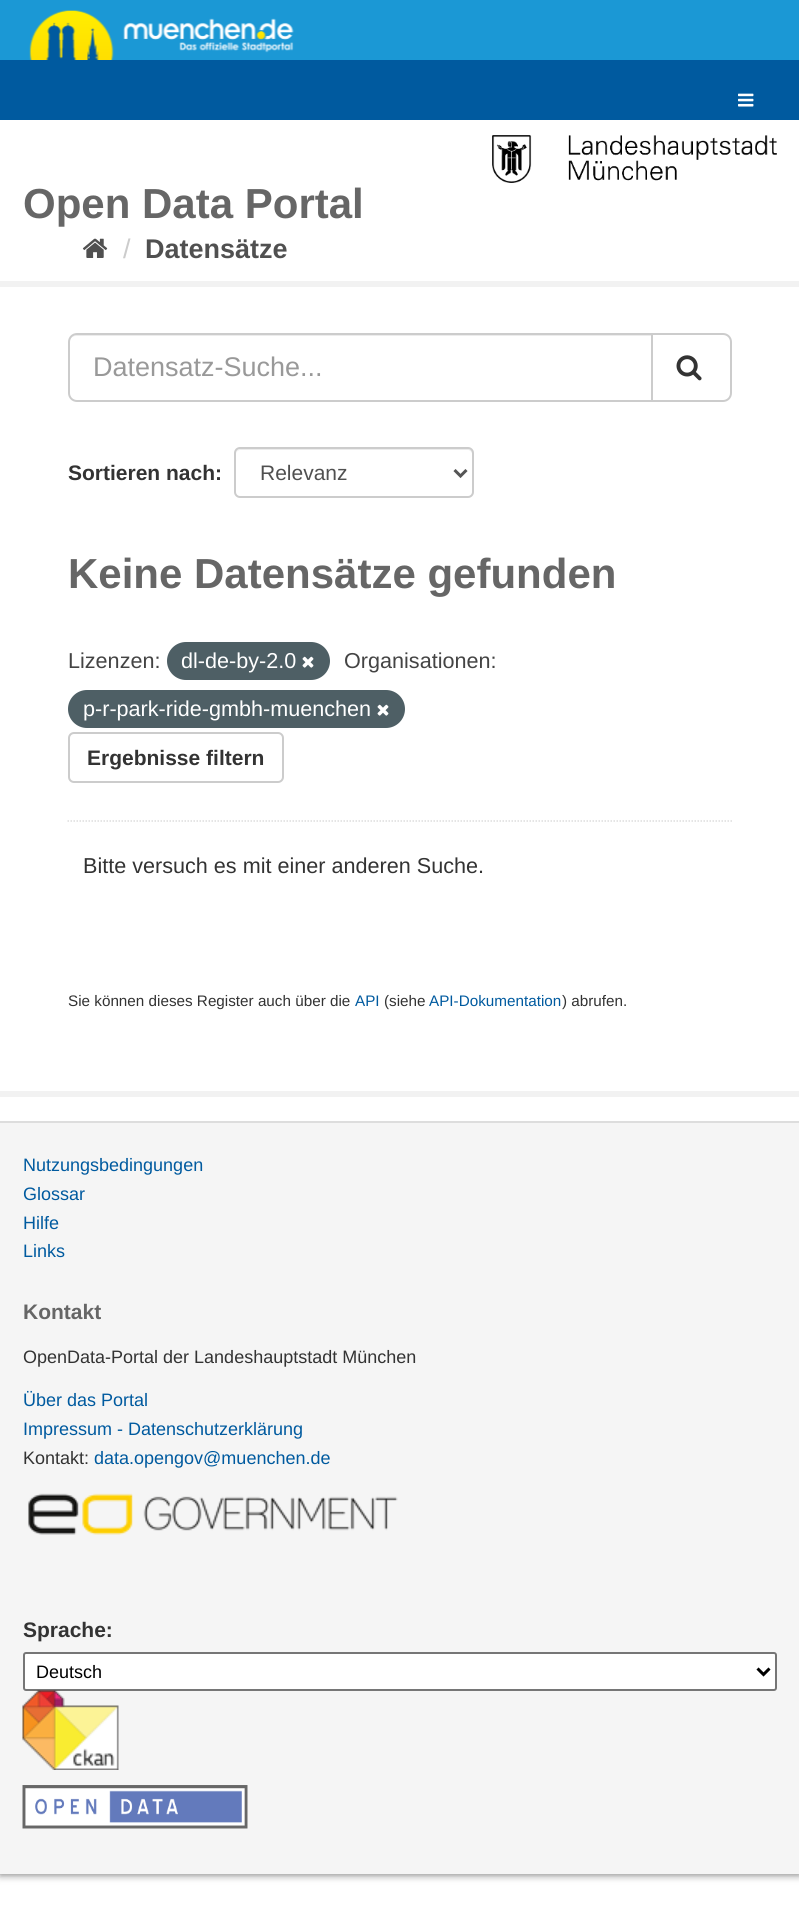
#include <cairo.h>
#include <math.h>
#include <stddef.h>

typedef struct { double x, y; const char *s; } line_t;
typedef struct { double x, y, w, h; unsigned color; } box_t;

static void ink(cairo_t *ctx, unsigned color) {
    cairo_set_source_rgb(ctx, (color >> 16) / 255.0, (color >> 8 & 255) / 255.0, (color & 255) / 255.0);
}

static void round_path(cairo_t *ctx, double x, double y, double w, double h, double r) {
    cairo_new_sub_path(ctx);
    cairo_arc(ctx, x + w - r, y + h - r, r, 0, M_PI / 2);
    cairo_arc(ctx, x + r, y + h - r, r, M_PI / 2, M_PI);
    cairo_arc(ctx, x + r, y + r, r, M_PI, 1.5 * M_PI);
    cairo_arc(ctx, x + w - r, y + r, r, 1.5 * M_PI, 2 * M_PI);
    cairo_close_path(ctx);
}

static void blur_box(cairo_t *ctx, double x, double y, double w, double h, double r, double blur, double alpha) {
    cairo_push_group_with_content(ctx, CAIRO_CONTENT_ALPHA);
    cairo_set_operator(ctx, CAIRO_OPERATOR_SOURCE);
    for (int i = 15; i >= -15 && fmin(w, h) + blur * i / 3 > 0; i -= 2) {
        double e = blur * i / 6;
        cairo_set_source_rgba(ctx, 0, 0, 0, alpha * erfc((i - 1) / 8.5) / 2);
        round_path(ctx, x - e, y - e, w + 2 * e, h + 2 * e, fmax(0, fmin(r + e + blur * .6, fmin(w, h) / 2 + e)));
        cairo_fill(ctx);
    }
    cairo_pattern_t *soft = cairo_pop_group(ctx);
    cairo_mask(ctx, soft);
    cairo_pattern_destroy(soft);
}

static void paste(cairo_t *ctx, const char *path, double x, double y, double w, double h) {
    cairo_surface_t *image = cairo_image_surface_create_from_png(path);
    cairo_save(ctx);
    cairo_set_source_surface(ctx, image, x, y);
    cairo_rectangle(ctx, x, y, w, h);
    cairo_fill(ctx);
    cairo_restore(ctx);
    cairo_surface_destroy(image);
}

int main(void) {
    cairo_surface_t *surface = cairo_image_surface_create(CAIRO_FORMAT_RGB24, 799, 1932);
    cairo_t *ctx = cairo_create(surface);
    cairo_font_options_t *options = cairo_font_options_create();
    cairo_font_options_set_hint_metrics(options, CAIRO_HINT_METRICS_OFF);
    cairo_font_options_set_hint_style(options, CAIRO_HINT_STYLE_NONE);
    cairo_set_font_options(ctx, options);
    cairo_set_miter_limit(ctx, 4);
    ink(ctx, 0xFFFFFF);
    cairo_paint(ctx);
    ink(ctx, 0x000000);
    blur_box(ctx, 0, 2, 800, 1873, 0, 4, 0.5);
    {
        static const box_t items[] = {
            {0, 120, 799, 1001, 0xFFFFFF},
            {0, 60, 799, 60, 0x005A9F},
            {0, 0, 799, 60, 0x1B98D5},
        };
        for (size_t i = 0; i < sizeof items / sizeof *items; i++) {
            ink(ctx, items[i].color);
            cairo_rectangle(ctx, items[i].x, items[i].y, items[i].w, items[i].h);
            cairo_fill(ctx);
        }
    }
    paste(ctx, "media/1.png", 29, 10, 265, 50);
    paste(ctx, "media/2.png", 738, 93, 16, 14);
    paste(ctx, "media/3.png", 492, 135, 285, 48);
    cairo_select_font_face(ctx, "Liberation Sans", CAIRO_FONT_SLANT_NORMAL, CAIRO_FONT_WEIGHT_BOLD);
    cairo_set_font_size(ctx, 42);
    ink(ctx, 0x666666);
    cairo_move_to(ctx, 23, 218);
    cairo_show_text(ctx, "Open Data Portal");
    paste(ctx, "media/4.png", 82, 238, 26, 20);
    cairo_select_font_face(ctx, "Liberation Sans", CAIRO_FONT_SLANT_NORMAL, CAIRO_FONT_WEIGHT_NORMAL);
    cairo_set_font_size(ctx, 27);
    ink(ctx, 0xCCCCCC);
    cairo_move_to(ctx, 123, 258);
    cairo_show_text(ctx, "/");
    cairo_select_font_face(ctx, "Liberation Sans", CAIRO_FONT_SLANT_NORMAL, CAIRO_FONT_WEIGHT_BOLD);
    ink(ctx, 0x505050);
    cairo_move_to(ctx, 145, 258);
    cairo_show_text(ctx, "Datensätze");
    cairo_rectangle(ctx, -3, 284, 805, 810);
    ink(ctx, 0xF2F2F2);
    cairo_set_line_width(ctx, 6);
    cairo_stroke(ctx);
    cairo_new_path(ctx);
    cairo_move_to(ctx, 67.5, 821);
    cairo_line_to(ctx, 732, 821);
    ink(ctx, 0xDDDDDD);
    cairo_set_line_width(ctx, 1.5);
    cairo_set_dash(ctx, (double[]){1.5, 1.5}, 2, 0);
    cairo_stroke(ctx);
    ink(ctx, 0xECECEC);
    cairo_new_path(ctx);
    cairo_move_to(ctx, 76, 336);
    cairo_line_to(ctx, 651, 336);
    cairo_line_to(ctx, 651, 335);
    cairo_line_to(ctx, 77, 335);
    cairo_curve_to(ctx, 72, 335, 69, 339, 69, 344);
    cairo_curve_to(ctx, 69, 339, 72, 336, 76, 336);
    cairo_close_path(ctx);
    cairo_fill(ctx);
    cairo_new_path(ctx);
    cairo_move_to(ctx, 77, 334);
    cairo_line_to(ctx, 652, 334);
    cairo_line_to(ctx, 652, 401);
    cairo_line_to(ctx, 77, 401);
    cairo_curve_to(ctx, 72.5, 401, 69, 397.5, 69, 393);
    cairo_line_to(ctx, 69, 342);
    cairo_curve_to(ctx, 69, 337.5, 72.5, 334, 77, 334);
    cairo_close_path(ctx);
    ink(ctx, 0xCCCCCC);
    cairo_set_line_width(ctx, 2);
    cairo_set_dash(ctx, NULL, 0, 0);
    cairo_stroke(ctx);
    cairo_select_font_face(ctx, "Liberation Sans", CAIRO_FONT_SLANT_NORMAL, CAIRO_FONT_WEIGHT_NORMAL);
    ink(ctx, 0x999999);
    cairo_move_to(ctx, 93, 376);
    cairo_show_text(ctx, "Datensatz-Suche...");
    ink(ctx, 0xFFFFFF);
    cairo_new_path(ctx);
    cairo_move_to(ctx, 652, 334);
    cairo_line_to(ctx, 723, 334);
    cairo_curve_to(ctx, 727.5, 334, 731, 337.5, 731, 342);
    cairo_line_to(ctx, 731, 393);
    cairo_curve_to(ctx, 731, 397.5, 727.5, 401, 723, 401);
    cairo_line_to(ctx, 652, 401);
    cairo_close_path(ctx);
    cairo_fill_preserve(ctx);
    ink(ctx, 0xCCCCCC);
    cairo_stroke(ctx);
    paste(ctx, "media/5.png", 676, 355, 26, 26);
    cairo_select_font_face(ctx, "Liberation Sans", CAIRO_FONT_SLANT_NORMAL, CAIRO_FONT_WEIGHT_BOLD);
    cairo_set_font_size(ctx, 21);
    ink(ctx, 0x333333);
    cairo_move_to(ctx, 68, 480);
    cairo_show_text(ctx, "Sortieren nach:");
    ink(ctx, 0xECECEC);
    cairo_new_path(ctx);
    cairo_move_to(ctx, 240, 450);
    cairo_line_to(ctx, 468, 450);
    cairo_curve_to(ctx, 470, 450, 472, 452, 472, 454);
    cairo_line_to(ctx, 472, 495);
    cairo_curve_to(ctx, 473, 494, 473, 493, 473, 492);
    cairo_line_to(ctx, 473, 454);
    cairo_curve_to(ctx, 473, 451, 471, 449, 468, 449);
    cairo_line_to(ctx, 241, 449);
    cairo_curve_to(ctx, 238, 449, 236, 451, 236, 454);
    cairo_curve_to(ctx, 236, 452, 238, 450, 240, 450);
    cairo_close_path(ctx);
    cairo_fill(ctx);
    round_path(ctx, 235, 448, 238, 49, 5);
    ink(ctx, 0xCCCCCC);
    cairo_stroke(ctx);
    cairo_new_path(ctx);
    cairo_move_to(ctx, 454.5, 470);
    cairo_line_to(ctx, 460.5, 476);
    cairo_line_to(ctx, 466.5, 470);
    ink(ctx, 0x555555);
    cairo_set_line_width(ctx, 3);
    cairo_stroke(ctx);
    cairo_select_font_face(ctx, "Liberation Sans", CAIRO_FONT_SLANT_NORMAL, CAIRO_FONT_WEIGHT_NORMAL);
    ink(ctx, 0x505050);
    cairo_move_to(ctx, 260, 480);
    cairo_show_text(ctx, "Relevanz");
    cairo_select_font_face(ctx, "Liberation Sans", CAIRO_FONT_SLANT_NORMAL, CAIRO_FONT_WEIGHT_BOLD);
    cairo_set_font_size(ctx, 42);
    ink(ctx, 0x666666);
    cairo_move_to(ctx, 68, 588);
    cairo_show_text(ctx, "Keine Datensätze gefunden");
    cairo_select_font_face(ctx, "Liberation Sans", CAIRO_FONT_SLANT_NORMAL, CAIRO_FONT_WEIGHT_NORMAL);
    cairo_set_font_size(ctx, 21.6);
    ink(ctx, 0x444444);
    cairo_move_to(ctx, 68, 668);
    cairo_show_text(ctx, "Lizenzen:");
    ink(ctx, 0x4E5F65);
    round_path(ctx, 167, 642, 163, 38, 19);
    cairo_fill(ctx);
    ink(ctx, 0xFFFFFF);
    cairo_move_to(ctx, 181, 668);
    cairo_show_text(ctx, "dl-de-by-2.0");
    paste(ctx, "media/6.png", 302, 656, 12, 12);
    ink(ctx, 0x444444);
    cairo_move_to(ctx, 344, 668);
    cairo_show_text(ctx, "Organisationen:");
    ink(ctx, 0x4E5F65);
    round_path(ctx, 68, 690, 337, 38, 19);
    cairo_fill(ctx);
    ink(ctx, 0xFFFFFF);
    cairo_move_to(ctx, 83, 716);
    cairo_show_text(ctx, "p-r-park-ride-gmbh-muenchen");
    paste(ctx, "media/6.png", 377, 704, 12, 12);
    round_path(ctx, 69, 733, 214, 49, 5);
    ink(ctx, 0xCCCCCC);
    cairo_set_line_width(ctx, 2);
    cairo_stroke(ctx);
    cairo_select_font_face(ctx, "Liberation Sans", CAIRO_FONT_SLANT_NORMAL, CAIRO_FONT_WEIGHT_BOLD);
    cairo_set_font_size(ctx, 21);
    ink(ctx, 0x333333);
    cairo_move_to(ctx, 87, 765);
    cairo_show_text(ctx, "Ergebnisse filtern");
    cairo_select_font_face(ctx, "Liberation Sans", CAIRO_FONT_SLANT_NORMAL, CAIRO_FONT_WEIGHT_NORMAL);
    cairo_set_font_size(ctx, 21.6);
    cairo_move_to(ctx, 83, 873);
    cairo_show_text(ctx, "Bitte versuch es mit einer anderen Suche.");
    cairo_set_font_size(ctx, 15.25);
    cairo_move_to(ctx, 68, 1006);
    cairo_show_text(ctx, "Sie können dieses Register auch über die");
    ink(ctx, 0x005A9F);
    cairo_move_to(ctx, 355, 1006);
    cairo_show_text(ctx, "API");
    ink(ctx, 0x333333);
    cairo_move_to(ctx, 384, 1006);
    cairo_show_text(ctx, "(siehe");
    ink(ctx, 0x005A9F);
    cairo_move_to(ctx, 429, 1006);
    cairo_show_text(ctx, "API-Dokumentation");
    ink(ctx, 0x333333);
    cairo_move_to(ctx, 562, 1006);
    cairo_show_text(ctx, ") abrufen.");
    ink(ctx, 0xF5F5F5);
    cairo_rectangle(ctx, 0, 1123, 799, 751);
    cairo_fill(ctx);
    ink(ctx, 0xDDDDDD);
    cairo_rectangle(ctx, 0, 1121, 799, 2);
    cairo_fill(ctx);
    cairo_set_font_size(ctx, 18);
    ink(ctx, 0x005A9F);
    {
        static const line_t items[] = {
            {23, 1171, "Nutzungsbedingungen"},
            {23, 1200, "Glossar"},
            {23, 1229, "Hilfe"},
            {23, 1257, "Links"},
        };
        for (size_t i = 0; i < sizeof items / sizeof *items; i++) {
            cairo_move_to(ctx, items[i].x, items[i].y);
            cairo_show_text(ctx, items[i].s);
        }
    }
    cairo_select_font_face(ctx, "Liberation Sans", CAIRO_FONT_SLANT_NORMAL, CAIRO_FONT_WEIGHT_BOLD);
    cairo_set_font_size(ctx, 21);
    ink(ctx, 0x666666);
    cairo_move_to(ctx, 23, 1319);
    cairo_show_text(ctx, "Kontakt");
    cairo_select_font_face(ctx, "Liberation Sans", CAIRO_FONT_SLANT_NORMAL, CAIRO_FONT_WEIGHT_NORMAL);
    cairo_set_font_size(ctx, 18);
    ink(ctx, 0x333333);
    cairo_move_to(ctx, 23, 1363);
    cairo_show_text(ctx, "OpenData-Portal der Landeshauptstadt München");
    ink(ctx, 0x005A9F);
    cairo_move_to(ctx, 23, 1406);
    cairo_show_text(ctx, "Über das Portal");
    cairo_move_to(ctx, 23, 1435);
    cairo_show_text(ctx, "Impressum - Datenschutzerklärung");
    ink(ctx, 0x333333);
    cairo_move_to(ctx, 23, 1464);
    cairo_show_text(ctx, "Kontakt:");
    ink(ctx, 0x005A9F);
    cairo_move_to(ctx, 94, 1464);
    cairo_show_text(ctx, "data.opengov@muenchen.de");
    paste(ctx, "media/7.png", 28, 1493, 370, 42);
    cairo_select_font_face(ctx, "Liberation Sans", CAIRO_FONT_SLANT_NORMAL, CAIRO_FONT_WEIGHT_BOLD);
    cairo_set_font_size(ctx, 21);
    ink(ctx, 0x333333);
    cairo_move_to(ctx, 23, 1637);
    cairo_show_text(ctx, "Sprache:");
    ink(ctx, 0xFFFFFF);
    round_path(ctx, 24, 1653, 752, 37, 2);
    cairo_fill_preserve(ctx);
    ink(ctx, 0x767676);
    cairo_stroke(ctx);
    cairo_new_path(ctx);
    cairo_move_to(ctx, 757.5, 1668.5);
    cairo_line_to(ctx, 763.5, 1674.5);
    cairo_line_to(ctx, 769.5, 1668.5);
    ink(ctx, 0x000000);
    cairo_set_line_width(ctx, 3);
    cairo_stroke(ctx);
    cairo_select_font_face(ctx, "Liberation Sans", CAIRO_FONT_SLANT_NORMAL, CAIRO_FONT_WEIGHT_NORMAL);
    cairo_set_font_size(ctx, 18);
    cairo_move_to(ctx, 36, 1678);
    cairo_show_text(ctx, "Deutsch");
    paste(ctx, "media/8.png", 22, 1690, 97, 80);
    paste(ctx, "media/9.png", 22, 1785, 226, 44);
    cairo_surface_write_to_png(surface, "image.png");
    cairo_font_options_destroy(options);
    cairo_destroy(ctx);
    cairo_surface_destroy(surface);
    return 0;
}
